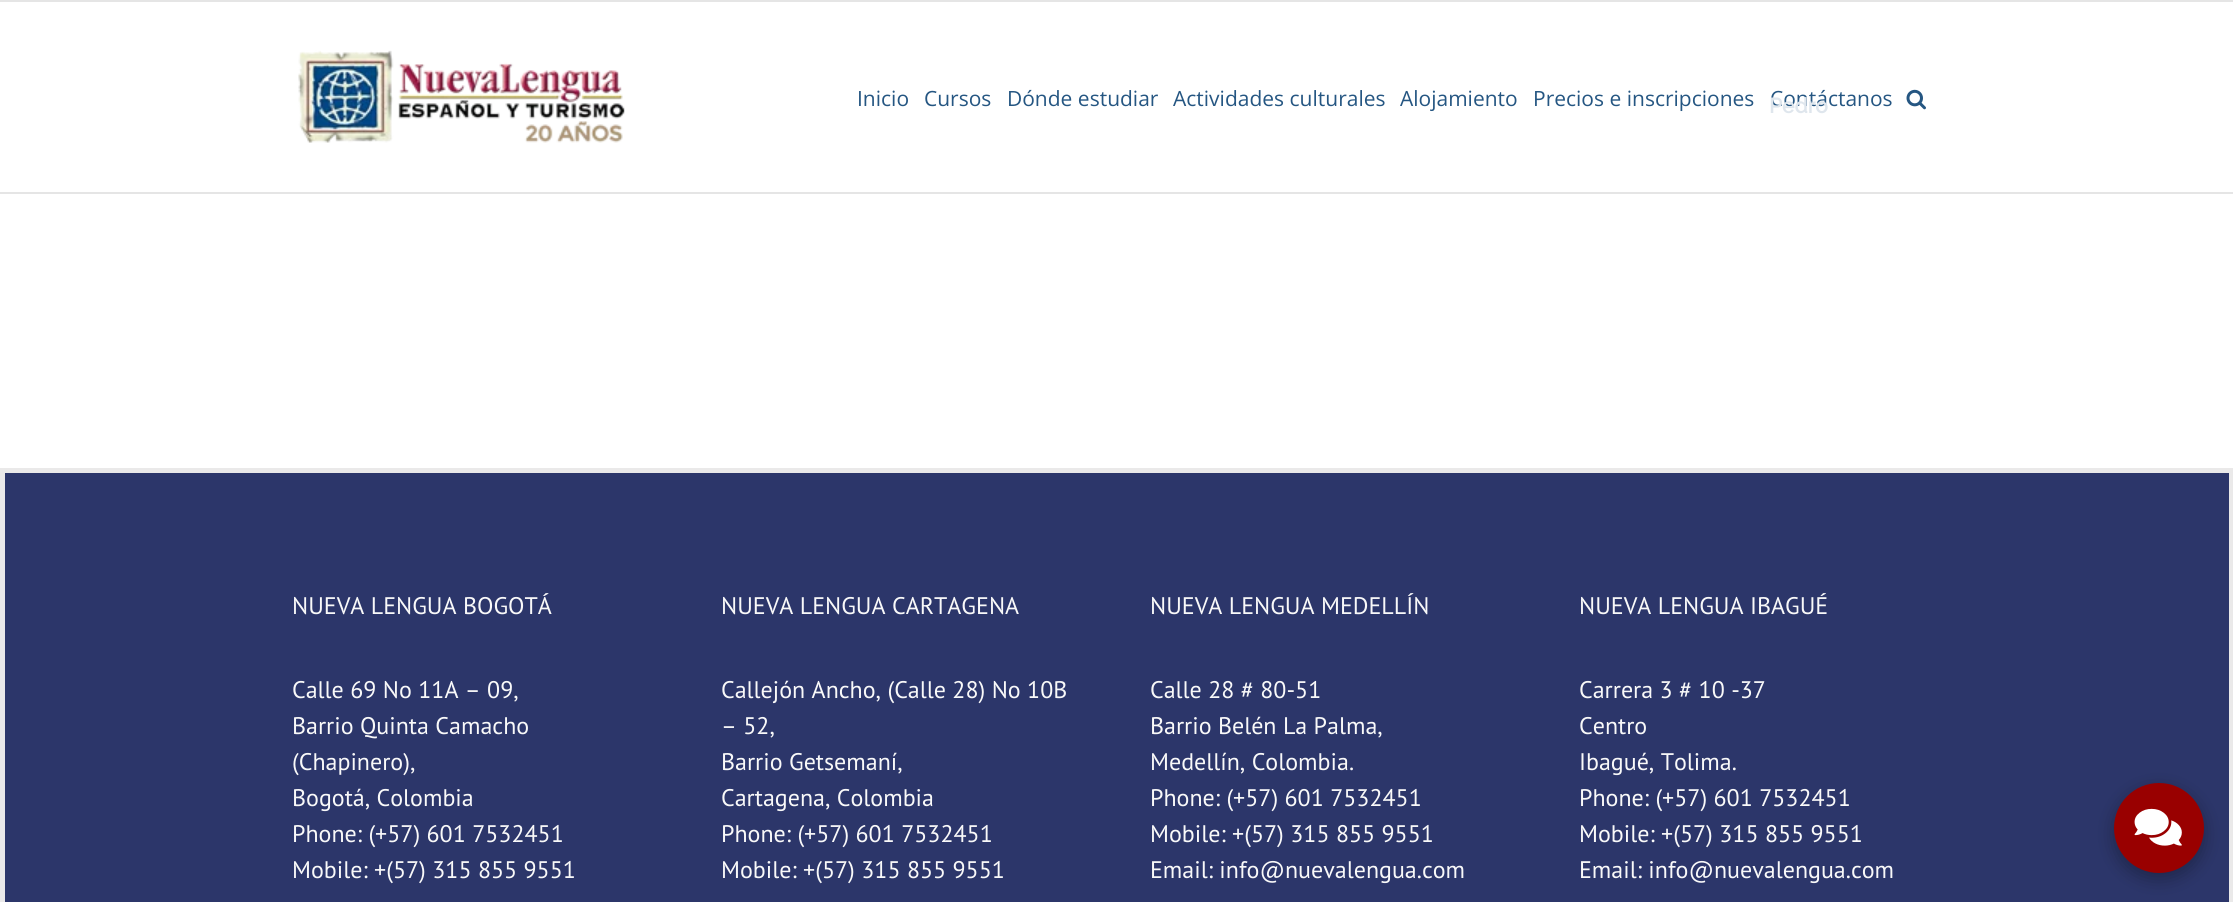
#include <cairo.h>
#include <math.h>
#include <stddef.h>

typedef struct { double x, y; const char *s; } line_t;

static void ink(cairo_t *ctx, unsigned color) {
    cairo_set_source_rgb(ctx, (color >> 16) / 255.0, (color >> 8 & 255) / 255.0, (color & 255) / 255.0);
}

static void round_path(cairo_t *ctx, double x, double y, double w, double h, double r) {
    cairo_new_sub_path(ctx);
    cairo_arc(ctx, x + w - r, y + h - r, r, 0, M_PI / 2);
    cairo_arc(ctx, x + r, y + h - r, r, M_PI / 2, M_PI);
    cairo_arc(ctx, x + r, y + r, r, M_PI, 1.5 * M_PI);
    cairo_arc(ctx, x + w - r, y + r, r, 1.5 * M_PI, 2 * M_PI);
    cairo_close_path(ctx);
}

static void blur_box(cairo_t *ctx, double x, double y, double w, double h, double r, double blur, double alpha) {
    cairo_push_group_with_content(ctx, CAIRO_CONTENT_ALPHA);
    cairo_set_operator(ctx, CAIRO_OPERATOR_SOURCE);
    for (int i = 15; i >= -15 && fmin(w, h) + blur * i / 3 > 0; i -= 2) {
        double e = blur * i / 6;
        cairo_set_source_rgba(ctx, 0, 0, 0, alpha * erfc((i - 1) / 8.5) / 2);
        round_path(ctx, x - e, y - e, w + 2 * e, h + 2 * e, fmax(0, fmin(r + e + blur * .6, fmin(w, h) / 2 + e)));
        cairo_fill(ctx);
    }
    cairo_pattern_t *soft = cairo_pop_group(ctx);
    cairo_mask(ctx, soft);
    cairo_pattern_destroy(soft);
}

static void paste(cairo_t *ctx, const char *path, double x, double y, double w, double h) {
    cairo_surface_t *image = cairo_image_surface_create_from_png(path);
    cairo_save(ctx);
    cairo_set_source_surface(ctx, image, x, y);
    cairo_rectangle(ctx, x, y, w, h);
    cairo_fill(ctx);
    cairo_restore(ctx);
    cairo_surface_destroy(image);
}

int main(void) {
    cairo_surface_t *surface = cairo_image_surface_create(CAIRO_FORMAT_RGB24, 2233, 902);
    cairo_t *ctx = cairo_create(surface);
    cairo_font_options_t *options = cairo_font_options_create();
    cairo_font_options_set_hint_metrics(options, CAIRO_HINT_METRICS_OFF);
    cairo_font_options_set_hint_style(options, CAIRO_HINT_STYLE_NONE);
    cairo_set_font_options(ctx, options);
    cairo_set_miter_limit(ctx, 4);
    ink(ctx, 0xFFFFFF);
    cairo_paint(ctx);
    ink(ctx, 0xE5E5E5);
    cairo_rectangle(ctx, 0, 0, 2233, 2);
    cairo_fill(ctx);
    cairo_rectangle(ctx, 0, 192, 2233, 2);
    cairo_fill(ctx);
    paste(ctx, "media/1.png", 298, 50, 327, 93);
    cairo_select_font_face(ctx, "Open Sans", CAIRO_FONT_SLANT_NORMAL, CAIRO_FONT_WEIGHT_NORMAL);
    cairo_set_font_size(ctx, 21);
    ink(ctx, 0x255682);
    {
        static const line_t items[] = {
            {857, 106, "Inicio"},
            {924, 106, "Cursos"},
            {1007, 106, "Dónde estudiar"},
            {1173, 106, "Actividades culturales"},
            {1400, 106, "Alojamiento"},
            {1533, 106, "Precios e inscripciones"},
            {1770, 106, "Contáctanos"},
        };
        for (size_t i = 0; i < sizeof items / sizeof *items; i++) {
            cairo_move_to(ctx, items[i].x, items[i].y);
            cairo_show_text(ctx, items[i].s);
        }
    }
    paste(ctx, "media/2.png", 1906, 89, 20, 21);
    ink(ctx, 0x2C366A);
    cairo_rectangle(ctx, 2.5, 470.5, 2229, 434);
    cairo_fill_preserve(ctx);
    ink(ctx, 0xEAE9E9);
    cairo_set_line_width(ctx, 5);
    cairo_stroke(ctx);
    cairo_select_font_face(ctx, "PT Sans", CAIRO_FONT_SLANT_NORMAL, CAIRO_FONT_WEIGHT_NORMAL);
    cairo_set_font_size(ctx, 24);
    ink(ctx, 0xF9F9F9);
    {
        static const line_t items[] = {
            {292, 614, "NUEVA LENGUA BOGOTÁ"},
            {292, 698, "Calle 69 No 11A – 09,"},
            {292, 734, "Barrio Quinta Camacho"},
            {292, 770, "(Chapinero),"},
            {292, 806, "Bogotá, Colombia"},
            {292, 842, "Phone: (+57) 601 7532451"},
            {292, 878, "Mobile: +(57) 315 855 9551"},
            {721, 614, "NUEVA LENGUA CARTAGENA"},
            {721, 698, "Callejón Ancho, (Calle 28) No 10B"},
            {721, 734, "– 52,"},
            {721, 770, "Barrio Getsemaní,"},
            {721, 806, "Cartagena, Colombia"},
            {721, 842, "Phone: (+57) 601 7532451"},
            {721, 878, "Mobile: +(57) 315 855 9551"},
            {1150, 614, "NUEVA LENGUA MEDELLÍN"},
            {1150, 698, "Calle 28 # 80-51"},
            {1150, 734, "Barrio Belén La Palma,"},
            {1150, 770, "Medellín, Colombia."},
            {1150, 806, "Phone: (+57) 601 7532451"},
            {1150, 842, "Mobile: +(57) 315 855 9551"},
            {1150, 878, "Email: info@nuevalengua.com"},
            {1579, 614, "NUEVA LENGUA IBAGUÉ"},
            {1579, 698, "Carrera 3 # 10 -37"},
            {1579, 734, "Centro"},
            {1579, 770, "Ibagué, Tolima."},
            {1579, 806, "Phone: (+57) 601 7532451"},
            {1579, 842, "Mobile: +(57) 315 855 9551"},
            {1579, 878, "Email: info@nuevalengua.com"},
        };
        for (size_t i = 0; i < sizeof items / sizeof *items; i++) {
            cairo_move_to(ctx, items[i].x, items[i].y);
            cairo_show_text(ctx, items[i].s);
        }
    }
    cairo_select_font_face(ctx, "Raleway", CAIRO_FONT_SLANT_NORMAL, CAIRO_FONT_WEIGHT_BOLD);
    cairo_set_font_size(ctx, 21);
    ink(ctx, 0xDFE6ED);
    cairo_move_to(ctx, 1769, 113);
    cairo_show_text(ctx, "Pedro");
    ink(ctx, 0x000000);
    blur_box(ctx, 2114, 789, 90, 90, 45, 9, 0.3);
    ink(ctx, 0x990000);
    cairo_arc(ctx, 2159, 828, 45, 0, 2 * M_PI);
    cairo_fill(ctx);
    paste(ctx, "media/3.png", 2134, 808, 48, 38);
    cairo_surface_write_to_png(surface, "image.png");
    cairo_font_options_destroy(options);
    cairo_destroy(ctx);
    cairo_surface_destroy(surface);
    return 0;
}
